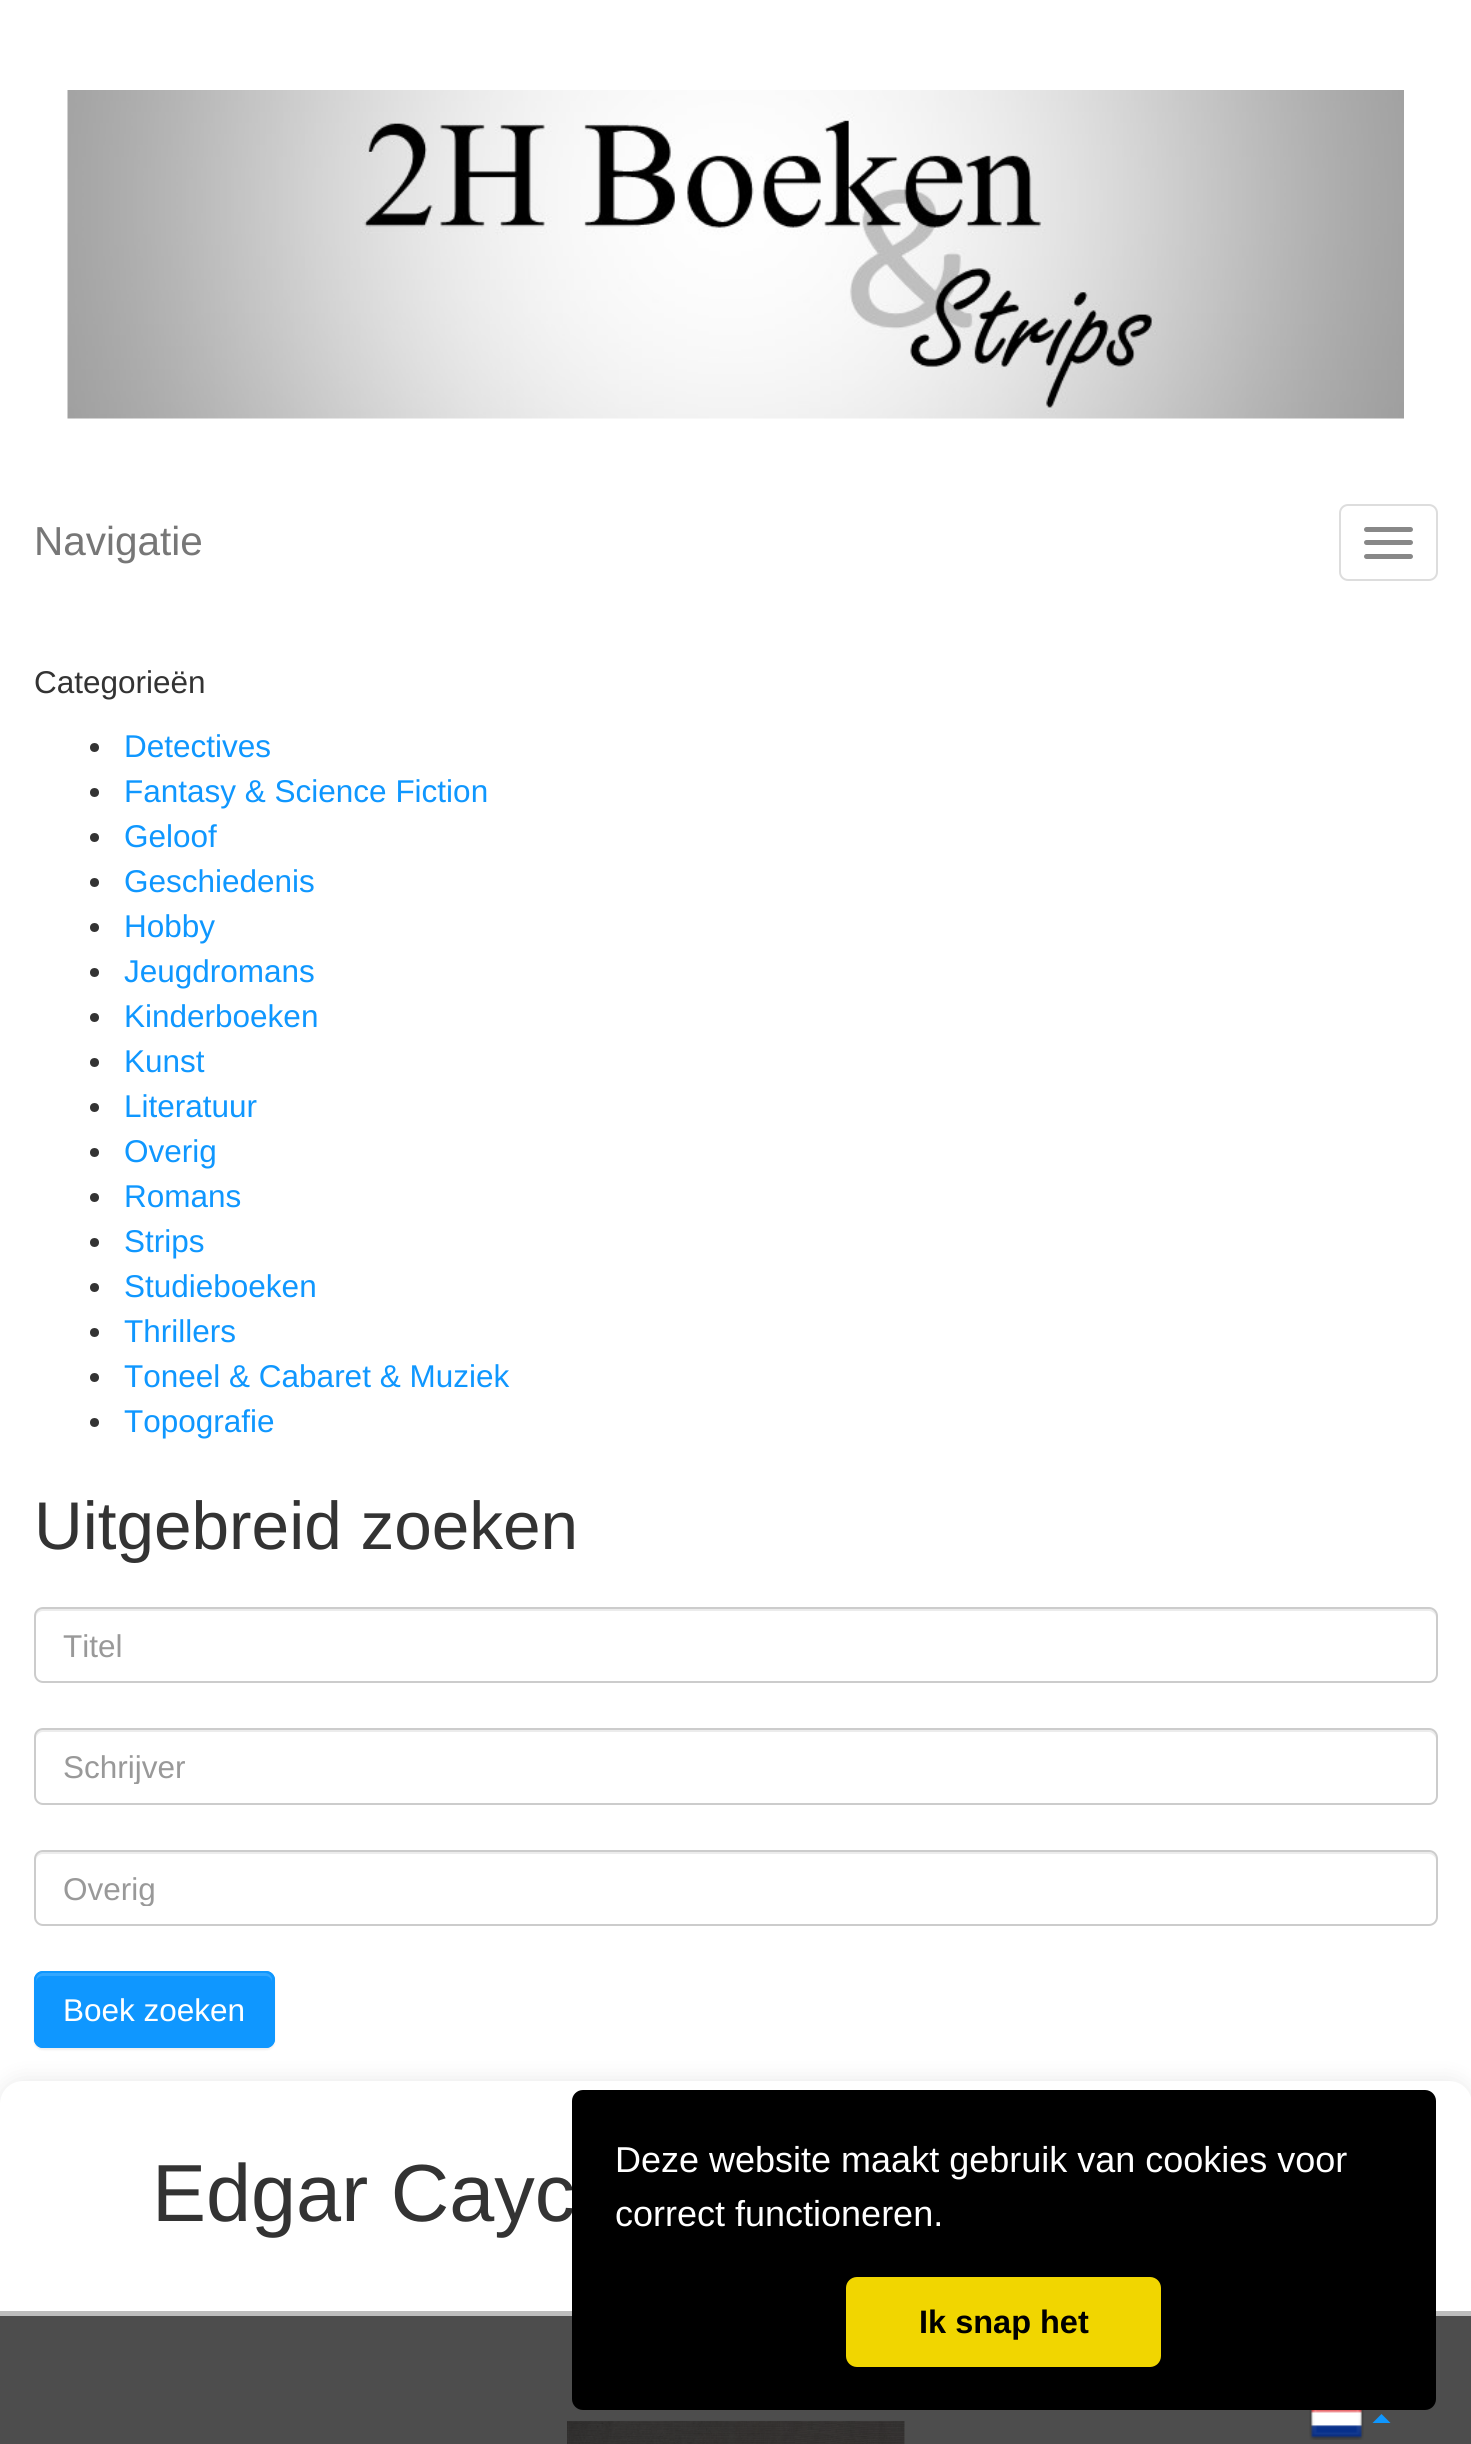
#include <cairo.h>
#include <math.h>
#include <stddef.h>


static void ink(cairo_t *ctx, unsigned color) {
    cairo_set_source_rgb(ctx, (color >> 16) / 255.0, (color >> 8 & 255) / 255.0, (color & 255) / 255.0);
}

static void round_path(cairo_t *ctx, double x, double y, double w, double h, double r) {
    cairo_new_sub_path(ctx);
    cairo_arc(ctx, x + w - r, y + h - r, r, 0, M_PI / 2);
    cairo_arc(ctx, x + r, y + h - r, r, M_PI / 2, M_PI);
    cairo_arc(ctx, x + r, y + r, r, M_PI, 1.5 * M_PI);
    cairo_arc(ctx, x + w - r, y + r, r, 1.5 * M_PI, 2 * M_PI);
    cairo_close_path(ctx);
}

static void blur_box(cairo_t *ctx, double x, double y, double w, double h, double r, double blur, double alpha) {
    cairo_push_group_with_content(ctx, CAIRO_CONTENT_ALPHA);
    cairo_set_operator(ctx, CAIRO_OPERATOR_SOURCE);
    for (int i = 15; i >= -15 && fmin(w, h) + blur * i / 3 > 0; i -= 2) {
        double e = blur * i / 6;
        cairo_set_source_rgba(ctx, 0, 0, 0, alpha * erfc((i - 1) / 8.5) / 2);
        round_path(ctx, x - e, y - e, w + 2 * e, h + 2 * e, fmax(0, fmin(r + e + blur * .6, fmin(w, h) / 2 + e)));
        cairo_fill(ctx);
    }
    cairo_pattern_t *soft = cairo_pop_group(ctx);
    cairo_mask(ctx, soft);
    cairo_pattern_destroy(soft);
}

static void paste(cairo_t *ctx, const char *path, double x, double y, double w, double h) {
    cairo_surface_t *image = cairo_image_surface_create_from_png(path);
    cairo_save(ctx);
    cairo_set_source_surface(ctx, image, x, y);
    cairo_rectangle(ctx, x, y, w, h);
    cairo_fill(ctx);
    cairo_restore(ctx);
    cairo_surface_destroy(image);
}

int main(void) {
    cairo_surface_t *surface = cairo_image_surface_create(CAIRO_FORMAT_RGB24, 1471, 2444);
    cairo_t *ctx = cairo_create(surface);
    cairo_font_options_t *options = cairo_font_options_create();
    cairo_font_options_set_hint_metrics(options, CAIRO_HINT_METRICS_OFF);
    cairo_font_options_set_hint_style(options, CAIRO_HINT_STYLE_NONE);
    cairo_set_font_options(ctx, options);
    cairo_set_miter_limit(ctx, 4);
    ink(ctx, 0xFFFFFF);
    cairo_paint(ctx);
    paste(ctx, "media/1.png", 67, 90, 1337, 329);
    cairo_select_font_face(ctx, "Liberation Sans", CAIRO_FONT_SLANT_NORMAL, CAIRO_FONT_WEIGHT_NORMAL);
    cairo_set_font_size(ctx, 40.5);
    ink(ctx, 0x777777);
    cairo_move_to(ctx, 34, 555);
    cairo_show_text(ctx, "Navigatie");
    round_path(ctx, 1340, 505, 97, 75, 8);
    ink(ctx, 0xDDDDDD);
    cairo_stroke(ctx);
    ink(ctx, 0x888888);
    round_path(ctx, 1364, 527, 49, 5, 2.5);
    cairo_fill(ctx);
    round_path(ctx, 1364, 540, 49, 5, 2.5);
    cairo_fill(ctx);
    round_path(ctx, 1364, 554, 49, 5, 2.5);
    cairo_fill(ctx);
    cairo_set_font_size(ctx, 31.5);
    ink(ctx, 0x333333);
    cairo_move_to(ctx, 34, 693);
    cairo_show_text(ctx, "Categorieën");
    cairo_new_path(ctx);
    cairo_arc(ctx, 94.5, 747.5, 4.5, 0, 2 * M_PI);
    cairo_fill(ctx);
    ink(ctx, 0x0F97FF);
    cairo_move_to(ctx, 124, 757);
    cairo_show_text(ctx, "Detectives");
    ink(ctx, 0x333333);
    cairo_new_path(ctx);
    cairo_arc(ctx, 94.5, 792.5, 4.5, 0, 2 * M_PI);
    cairo_fill(ctx);
    ink(ctx, 0x0F97FF);
    cairo_move_to(ctx, 124, 802);
    cairo_show_text(ctx, "Fantasy & Science Fiction");
    ink(ctx, 0x333333);
    cairo_new_path(ctx);
    cairo_arc(ctx, 94.5, 837.5, 4.5, 0, 2 * M_PI);
    cairo_fill(ctx);
    ink(ctx, 0x0F97FF);
    cairo_move_to(ctx, 124, 847);
    cairo_show_text(ctx, "Geloof");
    ink(ctx, 0x333333);
    cairo_new_path(ctx);
    cairo_arc(ctx, 94.5, 882.5, 4.5, 0, 2 * M_PI);
    cairo_fill(ctx);
    ink(ctx, 0x0F97FF);
    cairo_move_to(ctx, 124, 892);
    cairo_show_text(ctx, "Geschiedenis");
    ink(ctx, 0x333333);
    cairo_new_path(ctx);
    cairo_arc(ctx, 94.5, 927.5, 4.5, 0, 2 * M_PI);
    cairo_fill(ctx);
    ink(ctx, 0x0F97FF);
    cairo_move_to(ctx, 124, 937);
    cairo_show_text(ctx, "Hobby");
    ink(ctx, 0x333333);
    cairo_new_path(ctx);
    cairo_arc(ctx, 94.5, 972.5, 4.5, 0, 2 * M_PI);
    cairo_fill(ctx);
    ink(ctx, 0x0F97FF);
    cairo_move_to(ctx, 124, 982);
    cairo_show_text(ctx, "Jeugdromans");
    ink(ctx, 0x333333);
    cairo_new_path(ctx);
    cairo_arc(ctx, 94.5, 1017.5, 4.5, 0, 2 * M_PI);
    cairo_fill(ctx);
    ink(ctx, 0x0F97FF);
    cairo_move_to(ctx, 124, 1027);
    cairo_show_text(ctx, "Kinderboeken");
    ink(ctx, 0x333333);
    cairo_new_path(ctx);
    cairo_arc(ctx, 94.5, 1062.5, 4.5, 0, 2 * M_PI);
    cairo_fill(ctx);
    ink(ctx, 0x0F97FF);
    cairo_move_to(ctx, 124, 1072);
    cairo_show_text(ctx, "Kunst");
    ink(ctx, 0x333333);
    cairo_new_path(ctx);
    cairo_arc(ctx, 94.5, 1107.5, 4.5, 0, 2 * M_PI);
    cairo_fill(ctx);
    ink(ctx, 0x0F97FF);
    cairo_move_to(ctx, 124, 1117);
    cairo_show_text(ctx, "Literatuur");
    ink(ctx, 0x333333);
    cairo_new_path(ctx);
    cairo_arc(ctx, 94.5, 1152.5, 4.5, 0, 2 * M_PI);
    cairo_fill(ctx);
    ink(ctx, 0x0F97FF);
    cairo_move_to(ctx, 124, 1162);
    cairo_show_text(ctx, "Overig");
    ink(ctx, 0x333333);
    cairo_new_path(ctx);
    cairo_arc(ctx, 94.5, 1197.5, 4.5, 0, 2 * M_PI);
    cairo_fill(ctx);
    ink(ctx, 0x0F97FF);
    cairo_move_to(ctx, 124, 1207);
    cairo_show_text(ctx, "Romans");
    ink(ctx, 0x333333);
    cairo_new_path(ctx);
    cairo_arc(ctx, 94.5, 1242.5, 4.5, 0, 2 * M_PI);
    cairo_fill(ctx);
    ink(ctx, 0x0F97FF);
    cairo_move_to(ctx, 124, 1252);
    cairo_show_text(ctx, "Strips");
    ink(ctx, 0x333333);
    cairo_new_path(ctx);
    cairo_arc(ctx, 94.5, 1287.5, 4.5, 0, 2 * M_PI);
    cairo_fill(ctx);
    ink(ctx, 0x0F97FF);
    cairo_move_to(ctx, 124, 1297);
    cairo_show_text(ctx, "Studieboeken");
    ink(ctx, 0x333333);
    cairo_new_path(ctx);
    cairo_arc(ctx, 94.5, 1332.5, 4.5, 0, 2 * M_PI);
    cairo_fill(ctx);
    ink(ctx, 0x0F97FF);
    cairo_move_to(ctx, 124, 1342);
    cairo_show_text(ctx, "Thrillers");
    ink(ctx, 0x333333);
    cairo_new_path(ctx);
    cairo_arc(ctx, 94.5, 1377.5, 4.5, 0, 2 * M_PI);
    cairo_fill(ctx);
    ink(ctx, 0x0F97FF);
    cairo_move_to(ctx, 124, 1387);
    cairo_show_text(ctx, "Toneel & Cabaret & Muziek");
    ink(ctx, 0x333333);
    cairo_new_path(ctx);
    cairo_arc(ctx, 94.5, 1422.5, 4.5, 0, 2 * M_PI);
    cairo_fill(ctx);
    ink(ctx, 0x0F97FF);
    cairo_move_to(ctx, 124, 1432);
    cairo_show_text(ctx, "Topografie");
    cairo_set_font_size(ctx, 67.5);
    ink(ctx, 0x333333);
    cairo_move_to(ctx, 34, 1549);
    cairo_show_text(ctx, "Uitgebreid zoeken");
    ink(ctx, 0xECECEC);
    cairo_new_path(ctx);
    cairo_move_to(ctx, 43, 1611);
    cairo_line_to(ctx, 1429, 1611);
    cairo_curve_to(ctx, 1432, 1611, 1436, 1614, 1436, 1618);
    cairo_line_to(ctx, 1436, 1616);
    cairo_curve_to(ctx, 1436, 1612, 1433, 1609, 1429, 1609);
    cairo_line_to(ctx, 43, 1609);
    cairo_curve_to(ctx, 39, 1609, 36, 1612, 36, 1616);
    cairo_line_to(ctx, 36, 1618);
    cairo_curve_to(ctx, 36, 1614, 39, 1611, 43, 1611);
    cairo_close_path(ctx);
    cairo_fill(ctx);
    round_path(ctx, 35, 1608, 1402, 74, 8);
    ink(ctx, 0xCCCCCC);
    cairo_stroke(ctx);
    cairo_set_font_size(ctx, 31.5);
    ink(ctx, 0x999999);
    cairo_move_to(ctx, 63, 1657);
    cairo_show_text(ctx, "Titel");
    ink(ctx, 0xECECEC);
    cairo_new_path(ctx);
    cairo_move_to(ctx, 43, 1732);
    cairo_line_to(ctx, 1429, 1732);
    cairo_curve_to(ctx, 1432, 1732, 1436, 1736, 1436, 1739);
    cairo_line_to(ctx, 1436, 1737);
    cairo_curve_to(ctx, 1436, 1733, 1433, 1730, 1429, 1730);
    cairo_line_to(ctx, 43, 1730);
    cairo_curve_to(ctx, 39, 1730, 36, 1733, 36, 1737);
    cairo_line_to(ctx, 36, 1739);
    cairo_curve_to(ctx, 36, 1736, 39, 1732, 43, 1732);
    cairo_close_path(ctx);
    cairo_fill(ctx);
    round_path(ctx, 35, 1729, 1402, 75, 8);
    ink(ctx, 0xCCCCCC);
    cairo_stroke(ctx);
    cairo_save(ctx);
    cairo_rectangle(ctx, 63, 1748, 1346, 36);
    cairo_clip(ctx);
    ink(ctx, 0x999999);
    cairo_move_to(ctx, 63, 1778);
    cairo_show_text(ctx, "Schrijver");
    cairo_restore(ctx);
    ink(ctx, 0xECECEC);
    cairo_new_path(ctx);
    cairo_move_to(ctx, 43, 1854);
    cairo_line_to(ctx, 1429, 1854);
    cairo_curve_to(ctx, 1432, 1854, 1436, 1857, 1436, 1861);
    cairo_line_to(ctx, 1436, 1859);
    cairo_curve_to(ctx, 1436, 1855, 1433, 1852, 1429, 1852);
    cairo_line_to(ctx, 43, 1852);
    cairo_curve_to(ctx, 39, 1852, 36, 1855, 36, 1859);
    cairo_line_to(ctx, 36, 1861);
    cairo_curve_to(ctx, 36, 1857, 39, 1854, 43, 1854);
    cairo_close_path(ctx);
    cairo_fill(ctx);
    round_path(ctx, 35, 1851, 1402, 74, 8);
    ink(ctx, 0xCCCCCC);
    cairo_stroke(ctx);
    cairo_save(ctx);
    cairo_rectangle(ctx, 63, 1870, 1346, 36);
    cairo_clip(ctx);
    ink(ctx, 0x999999);
    cairo_move_to(ctx, 63, 1900);
    cairo_show_text(ctx, "Overig");
    cairo_restore(ctx);
    ink(ctx, 0x000000);
    blur_box(ctx, 34, 1973, 241, 77, 9, 1, 0.07);
    ink(ctx, 0x0F97FF);
    round_path(ctx, 34, 1971, 241, 77, 9);
    cairo_fill(ctx);
    ink(ctx, 0x33A7FF);
    cairo_new_path(ctx);
    cairo_move_to(ctx, 43, 1976);
    cairo_line_to(ctx, 266, 1976);
    cairo_curve_to(ctx, 269, 1976, 272, 1979, 272, 1982);
    cairo_line_to(ctx, 272, 1980);
    cairo_curve_to(ctx, 272, 1976, 269, 1973, 265, 1973);
    cairo_line_to(ctx, 43, 1973);
    cairo_curve_to(ctx, 39, 1973, 36, 1976, 36, 1980);
    cairo_line_to(ctx, 36, 1982);
    cairo_curve_to(ctx, 36, 1979, 39, 1976, 43, 1976);
    cairo_close_path(ctx);
    cairo_fill(ctx);
    round_path(ctx, 35, 1972, 239, 75, 8);
    ink(ctx, 0x0F97FF);
    cairo_stroke(ctx);
    ink(ctx, 0xFFFFFF);
    cairo_move_to(ctx, 63, 2021);
    cairo_show_text(ctx, "Boek zoeken");
    ink(ctx, 0x000000);
    blur_box(ctx, 0, 2081, 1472, 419, 23, 11, 0.1);
    ink(ctx, 0xFFFFFF);
    round_path(ctx, 0, 2081, 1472, 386, 23);
    cairo_fill(ctx);
    ink(ctx, 0x4D4D4D);
    cairo_rectangle(ctx, 0, 2316, 1471, 128);
    cairo_fill(ctx);
    cairo_set_font_size(ctx, 81);
    ink(ctx, 0x333333);
    cairo_move_to(ctx, 152, 2221);
    cairo_show_text(ctx, "Edgar Cayc");
    paste(ctx, "media/2.png", 567, 2421, 338, 23);
    ink(ctx, 0xBDBDBD);
    cairo_rectangle(ctx, 0, 2311, 1471, 5);
    cairo_fill(ctx);
    paste(ctx, "media/3.png", 1309, 2410, 55, 30);
    ink(ctx, 0x0F97FF);
    cairo_new_path(ctx);
    cairo_move_to(ctx, 1390.5, 2423);
    cairo_line_to(ctx, 1372.5, 2423);
    cairo_line_to(ctx, 1381.5, 2414);
    cairo_close_path(ctx);
    cairo_fill(ctx);
    ink(ctx, 0x000000);
    round_path(ctx, 572, 2090, 864, 320, 11);
    cairo_fill(ctx);
    cairo_set_font_size(ctx, 36);
    ink(ctx, 0xFFFFFF);
    cairo_move_to(ctx, 615, 2172);
    cairo_show_text(ctx, "Deze website maakt gebruik van cookies voor");
    cairo_move_to(ctx, 615, 2226);
    cairo_show_text(ctx, "correct functioneren.");
    ink(ctx, 0xF1D600);
    round_path(ctx, 846, 2277, 315, 90, 11);
    cairo_fill(ctx);
    cairo_select_font_face(ctx, "Liberation Sans", CAIRO_FONT_SLANT_NORMAL, CAIRO_FONT_WEIGHT_BOLD);
    cairo_set_font_size(ctx, 32.5);
    ink(ctx, 0x000000);
    cairo_move_to(ctx, 919, 2333);
    cairo_show_text(ctx, "Ik snap het");
    cairo_surface_write_to_png(surface, "image.png");
    cairo_font_options_destroy(options);
    cairo_destroy(ctx);
    cairo_surface_destroy(surface);
    return 0;
}
